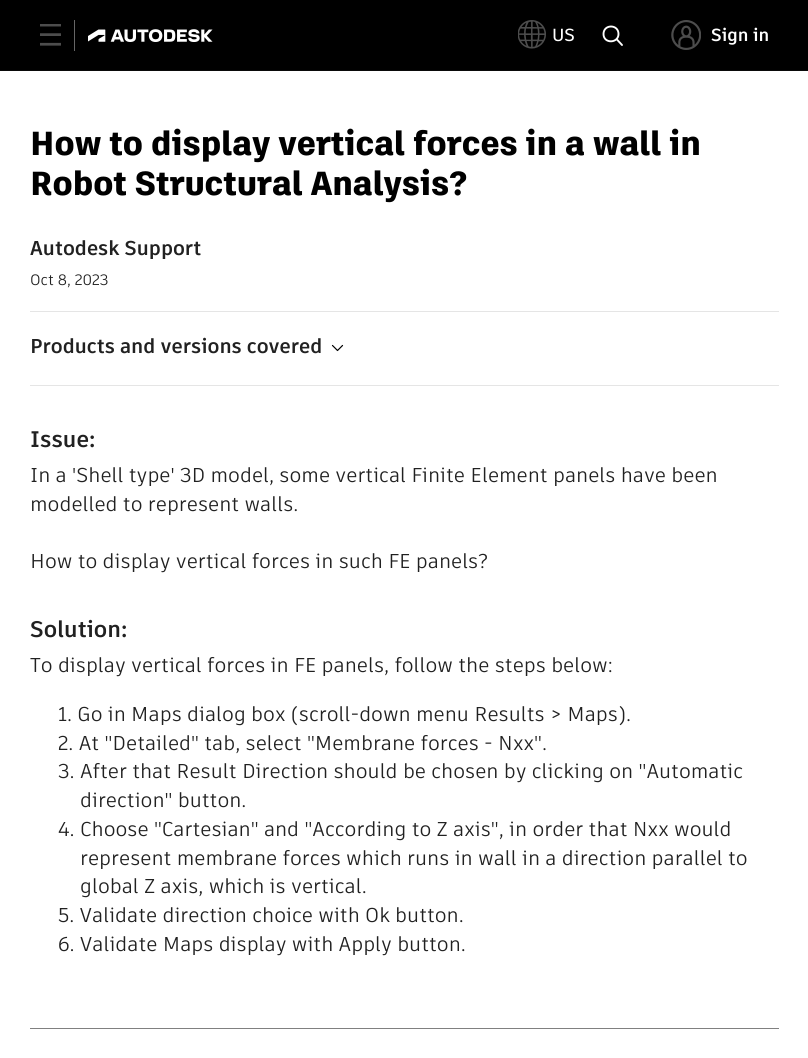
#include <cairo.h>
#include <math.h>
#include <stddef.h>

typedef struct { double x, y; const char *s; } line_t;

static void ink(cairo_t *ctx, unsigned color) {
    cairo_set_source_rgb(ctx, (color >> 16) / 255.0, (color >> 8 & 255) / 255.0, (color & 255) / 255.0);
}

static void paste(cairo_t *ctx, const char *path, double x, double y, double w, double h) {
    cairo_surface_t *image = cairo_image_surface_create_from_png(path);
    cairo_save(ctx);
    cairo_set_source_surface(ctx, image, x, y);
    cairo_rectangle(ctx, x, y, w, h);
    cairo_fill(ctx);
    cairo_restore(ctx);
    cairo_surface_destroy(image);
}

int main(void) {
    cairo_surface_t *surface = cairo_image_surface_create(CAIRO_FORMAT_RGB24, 808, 1058);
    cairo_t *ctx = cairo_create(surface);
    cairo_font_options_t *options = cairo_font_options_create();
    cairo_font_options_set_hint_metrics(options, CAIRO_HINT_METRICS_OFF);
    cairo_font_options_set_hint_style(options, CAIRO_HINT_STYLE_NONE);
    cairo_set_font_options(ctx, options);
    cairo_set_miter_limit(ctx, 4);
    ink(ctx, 0xFFFFFF);
    cairo_paint(ctx);
    ink(ctx, 0x000000);
    cairo_rectangle(ctx, 0, 0, 808, 70);
    cairo_fill(ctx);
    ink(ctx, 0x0A0A0A);
    cairo_rectangle(ctx, 0, 70, 808, 1);
    cairo_fill(ctx);
    paste(ctx, "media/1.png", 40, 24, 21, 22);
    ink(ctx, 0x666666);
    cairo_rectangle(ctx, 74, 20, 1, 31);
    cairo_fill(ctx);
    paste(ctx, "media/2.png", 88, 29, 125, 13);
    paste(ctx, "media/3.png", 518, 20, 28, 29);
    cairo_select_font_face(ctx, "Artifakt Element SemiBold", CAIRO_FONT_SLANT_NORMAL, CAIRO_FONT_WEIGHT_NORMAL);
    cairo_set_font_size(ctx, 17.5);
    ink(ctx, 0xFFFFFF);
    cairo_move_to(ctx, 552, 41);
    cairo_show_text(ctx, "US");
    cairo_new_path(ctx);
    cairo_move_to(ctx, 616.5, 39);
    cairo_line_to(ctx, 622, 45);
    cairo_move_to(ctx, 618.5, 34);
    cairo_curve_to(ctx, 618.5, 43.5, 603.5, 44, 603.5, 34);
    cairo_curve_to(ctx, 603.5, 24, 618.5, 24, 618.5, 34);
    cairo_close_path(ctx);
    cairo_set_line_width(ctx, 1.9);
    cairo_set_line_cap(ctx, CAIRO_LINE_CAP_ROUND);
    cairo_stroke(ctx);
    paste(ctx, "media/4.png", 671, 20, 30, 30);
    cairo_select_font_face(ctx, "Artifakt Element", CAIRO_FONT_SLANT_NORMAL, CAIRO_FONT_WEIGHT_BOLD);
    cairo_move_to(ctx, 711, 41);
    cairo_show_text(ctx, "Sign in");
    cairo_select_font_face(ctx, "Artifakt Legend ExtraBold", CAIRO_FONT_SLANT_NORMAL, CAIRO_FONT_WEIGHT_NORMAL);
    cairo_set_font_size(ctx, 33.25);
    ink(ctx, 0x000000);
    cairo_move_to(ctx, 30, 155);
    cairo_show_text(ctx, "How to display vertical forces in a wall in");
    cairo_move_to(ctx, 30, 195);
    cairo_show_text(ctx, "Robot Structural Analysis?");
    cairo_select_font_face(ctx, "Artifakt Element", CAIRO_FONT_SLANT_NORMAL, CAIRO_FONT_WEIGHT_BOLD);
    cairo_set_font_size(ctx, 20);
    ink(ctx, 0x212121);
    cairo_move_to(ctx, 30, 255);
    cairo_show_text(ctx, "Autodesk Support");
    cairo_select_font_face(ctx, "Artifakt Element", CAIRO_FONT_SLANT_NORMAL, CAIRO_FONT_WEIGHT_NORMAL);
    cairo_set_font_size(ctx, 15);
    cairo_move_to(ctx, 30, 285);
    cairo_show_text(ctx, "Oct 8, 2023");
    ink(ctx, 0xE5E5E5);
    cairo_rectangle(ctx, 30, 311, 749, 1);
    cairo_fill(ctx);
    cairo_select_font_face(ctx, "Artifakt Element", CAIRO_FONT_SLANT_NORMAL, CAIRO_FONT_WEIGHT_BOLD);
    cairo_set_font_size(ctx, 20);
    ink(ctx, 0x212121);
    cairo_move_to(ctx, 30, 353);
    cairo_show_text(ctx, "Products and versions covered");
    cairo_new_path(ctx);
    cairo_move_to(ctx, 342.5, 345.5);
    cairo_line_to(ctx, 337.5, 350.5);
    cairo_line_to(ctx, 332.5, 345.5);
    ink(ctx, 0x000000);
    cairo_set_line_width(ctx, 1.2);
    cairo_set_line_join(ctx, CAIRO_LINE_JOIN_ROUND);
    cairo_stroke(ctx);
    ink(ctx, 0xE5E5E5);
    cairo_rectangle(ctx, 30, 385, 749, 1);
    cairo_fill(ctx);
    cairo_set_font_size(ctx, 22.5);
    ink(ctx, 0x212121);
    cairo_move_to(ctx, 30, 447);
    cairo_show_text(ctx, "Issue:");
    cairo_select_font_face(ctx, "Artifakt Element", CAIRO_FONT_SLANT_NORMAL, CAIRO_FONT_WEIGHT_NORMAL);
    cairo_set_font_size(ctx, 20);
    {
        static const line_t items[] = {
            {30, 482, "In a 'Shell type' 3D model, some vertical Finite Element panels have been"},
            {30, 511, "modelled to represent walls."},
            {30, 568, "How to display vertical forces in such FE panels?"},
        };
        for (size_t i = 0; i < sizeof items / sizeof *items; i++) {
            cairo_move_to(ctx, items[i].x, items[i].y);
            cairo_show_text(ctx, items[i].s);
        }
    }
    cairo_select_font_face(ctx, "Artifakt Element", CAIRO_FONT_SLANT_NORMAL, CAIRO_FONT_WEIGHT_BOLD);
    cairo_set_font_size(ctx, 22.5);
    cairo_move_to(ctx, 30, 637);
    cairo_show_text(ctx, "Solution:");
    cairo_select_font_face(ctx, "Artifakt Element", CAIRO_FONT_SLANT_NORMAL, CAIRO_FONT_WEIGHT_NORMAL);
    cairo_set_font_size(ctx, 20);
    {
        static const line_t items[] = {
            {30, 672, "To display vertical forces in FE panels, follow the steps below:"},
            {58, 721, "1. Go in Maps dialog box (scroll-down menu Results > Maps)."},
            {58, 750, "2. At \"Detailed\" tab, select \"Membrane forces - Nxx\"."},
            {58, 778, "3. After that Result Direction should be chosen by clicking on \"Automatic"},
            {80, 807, "direction\" button."},
            {58, 836, "4. Choose \"Cartesian\" and \"According to Z axis\", in order that Nxx would"},
            {80, 865, "represent membrane forces which runs in wall in a direction parallel to"},
            {80, 893, "global Z axis, which is vertical."},
            {58, 922, "5. Validate direction choice with Ok button."},
            {58, 951, "6. Validate Maps display with Apply button."},
        };
        for (size_t i = 0; i < sizeof items / sizeof *items; i++) {
            cairo_move_to(ctx, items[i].x, items[i].y);
            cairo_show_text(ctx, items[i].s);
        }
    }
    ink(ctx, 0x808080);
    cairo_rectangle(ctx, 30, 1028, 749, 1);
    cairo_fill(ctx);
    cairo_surface_write_to_png(surface, "image.png");
    cairo_font_options_destroy(options);
    cairo_destroy(ctx);
    cairo_surface_destroy(surface);
    return 0;
}
